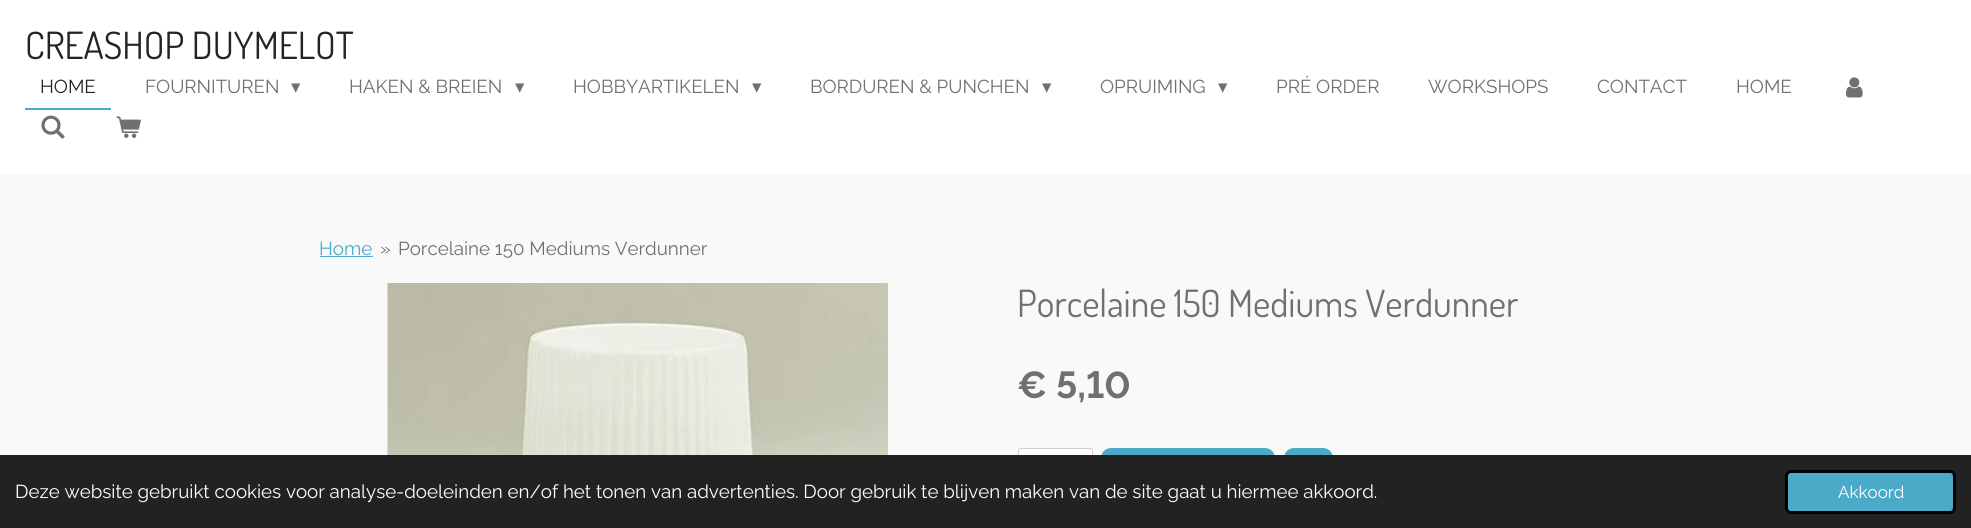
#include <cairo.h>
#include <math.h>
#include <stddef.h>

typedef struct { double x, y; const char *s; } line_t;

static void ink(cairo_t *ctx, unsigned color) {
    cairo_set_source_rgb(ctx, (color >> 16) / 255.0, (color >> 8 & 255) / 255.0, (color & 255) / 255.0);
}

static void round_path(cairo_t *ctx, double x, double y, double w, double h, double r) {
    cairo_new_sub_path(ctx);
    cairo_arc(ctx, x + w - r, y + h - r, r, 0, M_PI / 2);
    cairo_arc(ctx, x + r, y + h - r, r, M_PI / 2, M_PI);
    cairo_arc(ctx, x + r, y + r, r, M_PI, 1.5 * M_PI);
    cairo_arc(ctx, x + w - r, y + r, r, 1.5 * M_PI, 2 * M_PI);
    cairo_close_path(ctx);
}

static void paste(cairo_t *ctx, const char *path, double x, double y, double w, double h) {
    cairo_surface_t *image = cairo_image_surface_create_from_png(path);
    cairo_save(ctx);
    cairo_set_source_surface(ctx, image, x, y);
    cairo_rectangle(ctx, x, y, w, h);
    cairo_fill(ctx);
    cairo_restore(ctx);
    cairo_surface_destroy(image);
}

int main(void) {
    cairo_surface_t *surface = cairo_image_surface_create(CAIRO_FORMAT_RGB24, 1971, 528);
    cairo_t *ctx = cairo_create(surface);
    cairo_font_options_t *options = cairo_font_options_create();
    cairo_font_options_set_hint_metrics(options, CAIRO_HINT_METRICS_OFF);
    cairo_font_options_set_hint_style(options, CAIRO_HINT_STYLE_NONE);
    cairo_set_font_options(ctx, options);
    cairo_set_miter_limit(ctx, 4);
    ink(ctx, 0xFFFFFF);
    cairo_paint(ctx);
    cairo_select_font_face(ctx, "Dosis", CAIRO_FONT_SLANT_NORMAL, CAIRO_FONT_WEIGHT_NORMAL);
    cairo_set_font_size(ctx, 37.5);
    ink(ctx, 0x242424);
    cairo_move_to(ctx, 25, 59);
    cairo_show_text(ctx, "CREASHOP DUYMELOT");
    ink(ctx, 0x4CAAC9);
    cairo_rectangle(ctx, 25, 108, 86, 2);
    cairo_fill(ctx);
    cairo_select_font_face(ctx, "Raleway", CAIRO_FONT_SLANT_NORMAL, CAIRO_FONT_WEIGHT_NORMAL);
    cairo_set_font_size(ctx, 18.75);
    ink(ctx, 0x242424);
    cairo_move_to(ctx, 40, 93);
    cairo_show_text(ctx, "HOME");
    ink(ctx, 0x707070);
    cairo_move_to(ctx, 145, 93);
    cairo_show_text(ctx, "FOURNITUREN");
    cairo_select_font_face(ctx, "DejaVu Sans", CAIRO_FONT_SLANT_NORMAL, CAIRO_FONT_WEIGHT_NORMAL);
    cairo_move_to(ctx, 291, 93);
    cairo_show_text(ctx, "▾");
    cairo_select_font_face(ctx, "Raleway", CAIRO_FONT_SLANT_NORMAL, CAIRO_FONT_WEIGHT_NORMAL);
    cairo_move_to(ctx, 349, 93);
    cairo_show_text(ctx, "HAKEN & BREIEN");
    cairo_select_font_face(ctx, "DejaVu Sans", CAIRO_FONT_SLANT_NORMAL, CAIRO_FONT_WEIGHT_NORMAL);
    cairo_move_to(ctx, 515, 93);
    cairo_show_text(ctx, "▾");
    cairo_select_font_face(ctx, "Raleway", CAIRO_FONT_SLANT_NORMAL, CAIRO_FONT_WEIGHT_NORMAL);
    cairo_move_to(ctx, 573, 93);
    cairo_show_text(ctx, "HOBBYARTIKELEN");
    cairo_select_font_face(ctx, "DejaVu Sans", CAIRO_FONT_SLANT_NORMAL, CAIRO_FONT_WEIGHT_NORMAL);
    cairo_move_to(ctx, 752, 93);
    cairo_show_text(ctx, "▾");
    cairo_select_font_face(ctx, "Raleway", CAIRO_FONT_SLANT_NORMAL, CAIRO_FONT_WEIGHT_NORMAL);
    cairo_move_to(ctx, 810, 93);
    cairo_show_text(ctx, "BORDUREN & PUNCHEN");
    cairo_select_font_face(ctx, "DejaVu Sans", CAIRO_FONT_SLANT_NORMAL, CAIRO_FONT_WEIGHT_NORMAL);
    cairo_move_to(ctx, 1042, 93);
    cairo_show_text(ctx, "▾");
    cairo_select_font_face(ctx, "Raleway", CAIRO_FONT_SLANT_NORMAL, CAIRO_FONT_WEIGHT_NORMAL);
    cairo_move_to(ctx, 1100, 93);
    cairo_show_text(ctx, "OPRUIMING");
    cairo_select_font_face(ctx, "DejaVu Sans", CAIRO_FONT_SLANT_NORMAL, CAIRO_FONT_WEIGHT_NORMAL);
    cairo_move_to(ctx, 1218, 93);
    cairo_show_text(ctx, "▾");
    cairo_select_font_face(ctx, "Raleway", CAIRO_FONT_SLANT_NORMAL, CAIRO_FONT_WEIGHT_NORMAL);
    {
        static const line_t items[] = {
            {1276, 93, "PRÉ ORDER"},
            {1428, 93, "WORKSHOPS"},
            {1597, 93, "CONTACT"},
            {1736, 93, "HOME"},
        };
        for (size_t i = 0; i < sizeof items / sizeof *items; i++) {
            cairo_move_to(ctx, items[i].x, items[i].y);
            cairo_show_text(ctx, items[i].s);
        }
    }
    paste(ctx, "media/1.png", 1845, 77, 18, 21);
    paste(ctx, "media/2.png", 41, 115, 24, 24);
    paste(ctx, "media/3.png", 116, 116, 25, 22);
    ink(ctx, 0xF9F9F9);
    cairo_rectangle(ctx, 0, 174, 1971, 281);
    cairo_fill(ctx);
    ink(ctx, 0x4CAAC9);
    cairo_move_to(ctx, 319, 255);
    cairo_show_text(ctx, "Home");
    cairo_rectangle(ctx, 320, 256, 53, 1);
    cairo_fill(ctx);
    ink(ctx, 0x707070);
    cairo_move_to(ctx, 380, 255);
    cairo_show_text(ctx, "»");
    cairo_move_to(ctx, 398, 255);
    cairo_show_text(ctx, "Porcelaine 150 Mediums Verdunner");
    paste(ctx, "media/4.png", 387, 283, 501, 172);
    cairo_select_font_face(ctx, "Dosis", CAIRO_FONT_SLANT_NORMAL, CAIRO_FONT_WEIGHT_NORMAL);
    cairo_set_font_size(ctx, 37.5);
    cairo_move_to(ctx, 1017, 317);
    cairo_show_text(ctx, "Porcelaine 150 Mediums Verdunner");
    cairo_select_font_face(ctx, "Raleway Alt", CAIRO_FONT_SLANT_NORMAL, CAIRO_FONT_WEIGHT_BOLD);
    cairo_move_to(ctx, 1017, 398);
    cairo_show_text(ctx, "€ 5,10");
    ink(ctx, 0xFFFFFF);
    round_path(ctx, 1018.5, 448.5, 74, 49, 2);
    cairo_fill_preserve(ctx);
    ink(ctx, 0xCFCFCF);
    cairo_set_line_width(ctx, 1);
    cairo_stroke(ctx);
    ink(ctx, 0x4CAAC9);
    round_path(ctx, 1101, 448, 174, 50, 10);
    cairo_fill(ctx);
    round_path(ctx, 1284, 448, 49, 50, 10);
    cairo_fill(ctx);
    ink(ctx, 0x222222);
    cairo_rectangle(ctx, 0, 455, 1971, 73);
    cairo_fill(ctx);
    cairo_select_font_face(ctx, "Raleway", CAIRO_FONT_SLANT_NORMAL, CAIRO_FONT_WEIGHT_NORMAL);
    cairo_set_font_size(ctx, 18.75);
    ink(ctx, 0xFFFFFF);
    cairo_move_to(ctx, 15, 498);
    cairo_show_text(ctx, "Deze website gebruikt cookies voor analyse-doeleinden en/of het tonen van advertenties. Door gebruik te blijven maken van de site gaat u hiermee akkoord.");
    ink(ctx, 0x4CAAC9);
    round_path(ctx, 1786.5, 471.5, 168, 41, 4.5);
    cairo_fill_preserve(ctx);
    ink(ctx, 0x000000);
    cairo_set_line_width(ctx, 3);
    cairo_stroke(ctx);
    cairo_set_font_size(ctx, 17);
    ink(ctx, 0xFFFFFF);
    cairo_move_to(ctx, 1838, 498);
    cairo_show_text(ctx, "Akkoord");
    cairo_surface_write_to_png(surface, "image.png");
    cairo_font_options_destroy(options);
    cairo_destroy(ctx);
    cairo_surface_destroy(surface);
    return 0;
}
